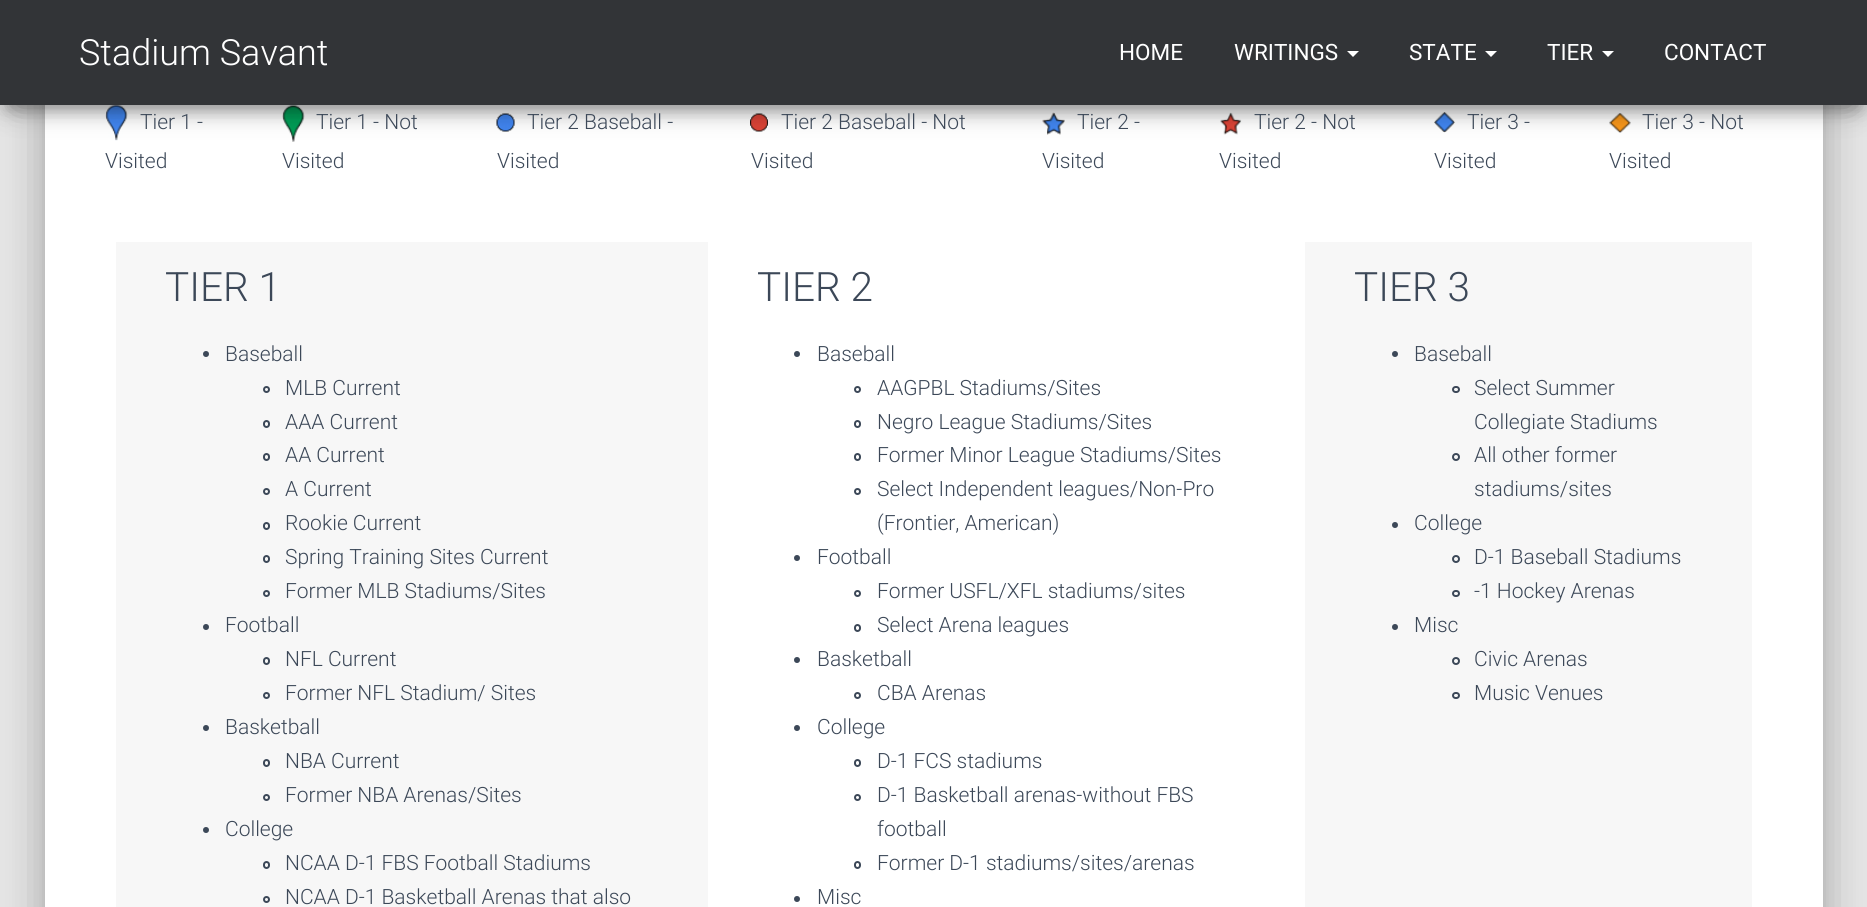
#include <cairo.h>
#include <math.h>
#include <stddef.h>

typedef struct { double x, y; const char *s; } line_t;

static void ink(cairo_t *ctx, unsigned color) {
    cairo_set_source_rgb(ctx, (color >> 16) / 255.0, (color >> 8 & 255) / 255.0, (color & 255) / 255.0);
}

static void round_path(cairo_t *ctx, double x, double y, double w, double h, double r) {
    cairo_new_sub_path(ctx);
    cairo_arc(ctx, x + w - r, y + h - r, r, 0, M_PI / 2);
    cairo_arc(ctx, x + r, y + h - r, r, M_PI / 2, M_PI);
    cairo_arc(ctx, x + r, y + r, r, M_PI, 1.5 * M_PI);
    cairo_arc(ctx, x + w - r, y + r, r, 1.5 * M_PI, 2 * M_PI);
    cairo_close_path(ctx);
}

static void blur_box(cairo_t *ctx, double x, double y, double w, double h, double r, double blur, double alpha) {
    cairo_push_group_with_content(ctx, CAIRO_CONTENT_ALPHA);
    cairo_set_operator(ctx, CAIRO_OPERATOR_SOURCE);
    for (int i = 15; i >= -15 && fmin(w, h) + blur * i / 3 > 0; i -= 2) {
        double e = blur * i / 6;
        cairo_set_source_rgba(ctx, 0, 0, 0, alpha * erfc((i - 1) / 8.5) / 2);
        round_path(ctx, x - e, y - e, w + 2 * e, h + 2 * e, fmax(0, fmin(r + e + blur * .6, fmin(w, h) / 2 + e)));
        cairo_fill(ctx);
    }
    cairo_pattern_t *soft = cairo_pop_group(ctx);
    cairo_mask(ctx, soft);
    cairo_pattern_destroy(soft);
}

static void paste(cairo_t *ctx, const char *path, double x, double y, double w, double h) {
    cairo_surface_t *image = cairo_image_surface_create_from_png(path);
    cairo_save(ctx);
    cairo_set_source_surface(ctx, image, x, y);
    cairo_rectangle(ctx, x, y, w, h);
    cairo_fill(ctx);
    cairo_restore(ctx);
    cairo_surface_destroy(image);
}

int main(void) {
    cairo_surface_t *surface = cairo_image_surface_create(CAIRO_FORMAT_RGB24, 1867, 907);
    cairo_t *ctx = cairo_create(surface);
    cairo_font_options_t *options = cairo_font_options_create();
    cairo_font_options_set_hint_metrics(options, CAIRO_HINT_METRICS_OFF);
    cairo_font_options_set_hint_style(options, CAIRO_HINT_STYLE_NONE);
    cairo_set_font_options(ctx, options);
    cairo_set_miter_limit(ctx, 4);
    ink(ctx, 0xE5E5E5);
    cairo_paint(ctx);
    ink(ctx, 0x000000);
    blur_box(ctx, 53, -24, 1762, 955, 1.5, 7.5, 0.2);
    blur_box(ctx, 38, -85, 1792, 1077, 17, 22.5, 0.12);
    blur_box(ctx, 42, -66, 1784, 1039, 12, 18, 0.14);
    ink(ctx, 0xFFFFFF);
    cairo_rectangle(ctx, 45, 105, 1778, 802);
    cairo_fill(ctx);
    paste(ctx, "media/1.png", 105, 105, 23, 36);
    paste(ctx, "media/2.png", 282, 105, 23, 37);
    paste(ctx, "media/3.png", 496, 113, 19, 19);
    paste(ctx, "media/4.png", 750, 113, 18, 19);
    paste(ctx, "media/5.png", 1042, 112, 23, 23);
    paste(ctx, "media/6.png", 1220, 112, 22, 23);
    paste(ctx, "media/7.png", 1434, 112, 21, 21);
    paste(ctx, "media/8.png", 1609, 113, 22, 20);
    ink(ctx, 0x000000);
    blur_box(ctx, 8, 20, 1852, 90, 0, 7.5, 0.2);
    blur_box(ctx, 0, 5, 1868, 105, 0, 15, 0.12);
    blur_box(ctx, 18, 33, 1832, 69, 0, 15, 0.42);
    ink(ctx, 0x323437);
    cairo_rectangle(ctx, 0, 0, 1867, 105);
    cairo_fill(ctx);
    cairo_select_font_face(ctx, "Roboto Light", CAIRO_FONT_SLANT_NORMAL, CAIRO_FONT_WEIGHT_NORMAL);
    cairo_set_font_size(ctx, 36);
    ink(ctx, 0xFFFFFF);
    cairo_move_to(ctx, 79, 65);
    cairo_show_text(ctx, "Stadium Savant");
    cairo_select_font_face(ctx, "Roboto", CAIRO_FONT_SLANT_NORMAL, CAIRO_FONT_WEIGHT_NORMAL);
    cairo_set_font_size(ctx, 22.5);
    cairo_move_to(ctx, 1119, 60);
    cairo_show_text(ctx, "HOME");
    cairo_move_to(ctx, 1234, 60);
    cairo_show_text(ctx, "WRITINGS");
    cairo_new_path(ctx);
    cairo_move_to(ctx, 1347, 51);
    cairo_line_to(ctx, 1359, 51);
    cairo_line_to(ctx, 1353, 57);
    cairo_close_path(ctx);
    cairo_fill(ctx);
    cairo_move_to(ctx, 1409, 60);
    cairo_show_text(ctx, "STATE");
    cairo_new_path(ctx);
    cairo_move_to(ctx, 1485, 51);
    cairo_line_to(ctx, 1497, 51);
    cairo_line_to(ctx, 1491, 57);
    cairo_close_path(ctx);
    cairo_fill(ctx);
    cairo_move_to(ctx, 1547, 60);
    cairo_show_text(ctx, "TIER");
    cairo_new_path(ctx);
    cairo_move_to(ctx, 1602, 51);
    cairo_line_to(ctx, 1614, 51);
    cairo_line_to(ctx, 1608, 57);
    cairo_close_path(ctx);
    cairo_fill(ctx);
    cairo_move_to(ctx, 1664, 60);
    cairo_show_text(ctx, "CONTACT");
    cairo_select_font_face(ctx, "Roboto Light", CAIRO_FONT_SLANT_NORMAL, CAIRO_FONT_WEIGHT_NORMAL);
    cairo_set_font_size(ctx, 21);
    ink(ctx, 0x3C4858);
    {
        static const line_t items[] = {
            {140, 129, "Tier 1 -"},
            {105, 168, "Visited"},
            {316, 129, "Tier 1 - Not"},
            {282, 168, "Visited"},
            {527, 129, "Tier 2 Baseball -"},
            {497, 168, "Visited"},
            {781, 129, "Tier 2 Baseball - Not"},
            {751, 168, "Visited"},
            {1077, 129, "Tier 2 -"},
            {1042, 168, "Visited"},
            {1254, 129, "Tier 2 - Not"},
            {1219, 168, "Visited"},
            {1467, 129, "Tier 3 -"},
            {1434, 168, "Visited"},
            {1642, 129, "Tier 3 - Not"},
            {1609, 168, "Visited"},
        };
        for (size_t i = 0; i < sizeof items / sizeof *items; i++) {
            cairo_move_to(ctx, items[i].x, items[i].y);
            cairo_show_text(ctx, items[i].s);
        }
    }
    ink(ctx, 0xF7F7F7);
    cairo_rectangle(ctx, 116, 242, 592, 665);
    cairo_fill(ctx);
    cairo_set_font_size(ctx, 40.5);
    ink(ctx, 0x3C4858);
    cairo_move_to(ctx, 165, 301);
    cairo_show_text(ctx, "TIER 1");
    cairo_new_path(ctx);
    cairo_arc(ctx, 206, 354, 3, 0, 2 * M_PI);
    cairo_fill(ctx);
    cairo_set_font_size(ctx, 21);
    cairo_move_to(ctx, 225, 361);
    cairo_show_text(ctx, "Baseball");
    cairo_new_path(ctx);
    cairo_arc(ctx, 266.5, 389.5, 2.5, 0, 2 * M_PI);
    cairo_stroke(ctx);
    cairo_move_to(ctx, 285, 395);
    cairo_show_text(ctx, "MLB Current");
    round_path(ctx, 264, 421, 5, 6, 2.5);
    cairo_stroke(ctx);
    cairo_move_to(ctx, 285, 429);
    cairo_show_text(ctx, "AAA Current");
    round_path(ctx, 264, 454, 5, 6, 2.5);
    cairo_stroke(ctx);
    cairo_move_to(ctx, 285, 462);
    cairo_show_text(ctx, "AA Current");
    cairo_new_path(ctx);
    cairo_arc(ctx, 266.5, 491.5, 2.5, 0, 2 * M_PI);
    cairo_stroke(ctx);
    cairo_move_to(ctx, 285, 496);
    cairo_show_text(ctx, "A Current");
    round_path(ctx, 264, 523, 5, 6, 2.5);
    cairo_stroke(ctx);
    cairo_move_to(ctx, 285, 530);
    cairo_show_text(ctx, "Rookie Current");
    round_path(ctx, 264, 556, 5, 6, 2.5);
    cairo_stroke(ctx);
    cairo_move_to(ctx, 285, 564);
    cairo_show_text(ctx, "Spring Training Sites Current");
    cairo_new_path(ctx);
    cairo_arc(ctx, 266.5, 593.5, 2.5, 0, 2 * M_PI);
    cairo_stroke(ctx);
    cairo_move_to(ctx, 285, 598);
    cairo_show_text(ctx, "Former MLB Stadiums/Sites");
    cairo_new_path(ctx);
    cairo_arc(ctx, 206, 627, 3, 0, 2 * M_PI);
    cairo_fill(ctx);
    cairo_move_to(ctx, 225, 632);
    cairo_show_text(ctx, "Football");
    round_path(ctx, 264, 658, 5, 6, 2.5);
    cairo_stroke(ctx);
    cairo_move_to(ctx, 285, 666);
    cairo_show_text(ctx, "NFL Current");
    cairo_new_path(ctx);
    cairo_arc(ctx, 266.5, 695.5, 2.5, 0, 2 * M_PI);
    cairo_stroke(ctx);
    cairo_move_to(ctx, 285, 700);
    cairo_show_text(ctx, "Former NFL Stadium/ Sites");
    cairo_new_path(ctx);
    cairo_arc(ctx, 206, 728, 3, 0, 2 * M_PI);
    cairo_fill(ctx);
    cairo_move_to(ctx, 225, 734);
    cairo_show_text(ctx, "Basketball");
    round_path(ctx, 264, 760, 5, 6, 2.5);
    cairo_stroke(ctx);
    cairo_move_to(ctx, 285, 768);
    cairo_show_text(ctx, "NBA Current");
    cairo_new_path(ctx);
    cairo_arc(ctx, 266.5, 797.5, 2.5, 0, 2 * M_PI);
    cairo_stroke(ctx);
    cairo_move_to(ctx, 285, 802);
    cairo_show_text(ctx, "Former NBA Arenas/Sites");
    cairo_new_path(ctx);
    cairo_arc(ctx, 206, 830, 3, 0, 2 * M_PI);
    cairo_fill(ctx);
    cairo_move_to(ctx, 225, 836);
    cairo_show_text(ctx, "College");
    round_path(ctx, 264, 862, 5, 6, 2.5);
    cairo_stroke(ctx);
    cairo_move_to(ctx, 285, 870);
    cairo_show_text(ctx, "NCAA D-1 FBS Football Stadiums");
    cairo_new_path(ctx);
    cairo_arc(ctx, 266.5, 899.5, 2.5, 0, 2 * M_PI);
    cairo_stroke(ctx);
    cairo_move_to(ctx, 285, 904);
    cairo_show_text(ctx, "NCAA D-1 Basketball Arenas that also");
    cairo_set_font_size(ctx, 40.5);
    cairo_move_to(ctx, 757, 301);
    cairo_show_text(ctx, "TIER 2");
    cairo_new_path(ctx);
    cairo_arc(ctx, 797, 354, 3, 0, 2 * M_PI);
    cairo_fill(ctx);
    cairo_set_font_size(ctx, 21);
    cairo_move_to(ctx, 817, 361);
    cairo_show_text(ctx, "Baseball");
    cairo_new_path(ctx);
    cairo_arc(ctx, 857.5, 389.5, 2.5, 0, 2 * M_PI);
    cairo_stroke(ctx);
    cairo_move_to(ctx, 877, 395);
    cairo_show_text(ctx, "AAGPBL Stadiums/Sites");
    round_path(ctx, 855, 421, 5, 6, 2.5);
    cairo_stroke(ctx);
    cairo_move_to(ctx, 877, 429);
    cairo_show_text(ctx, "Negro League Stadiums/Sites");
    round_path(ctx, 855, 454, 5, 6, 2.5);
    cairo_stroke(ctx);
    cairo_move_to(ctx, 877, 462);
    cairo_show_text(ctx, "Former Minor League Stadiums/Sites");
    cairo_new_path(ctx);
    cairo_arc(ctx, 857.5, 491.5, 2.5, 0, 2 * M_PI);
    cairo_stroke(ctx);
    cairo_move_to(ctx, 877, 496);
    cairo_show_text(ctx, "Select Independent leagues/Non-Pro");
    cairo_move_to(ctx, 877, 530);
    cairo_show_text(ctx, "(Frontier, American)");
    cairo_new_path(ctx);
    cairo_arc(ctx, 797, 558, 3, 0, 2 * M_PI);
    cairo_fill(ctx);
    cairo_move_to(ctx, 817, 564);
    cairo_show_text(ctx, "Football");
    cairo_new_path(ctx);
    cairo_arc(ctx, 857.5, 593.5, 2.5, 0, 2 * M_PI);
    cairo_stroke(ctx);
    cairo_move_to(ctx, 877, 598);
    cairo_show_text(ctx, "Former USFL/XFL stadiums/sites");
    round_path(ctx, 855, 625, 5, 6, 2.5);
    cairo_stroke(ctx);
    cairo_move_to(ctx, 877, 632);
    cairo_show_text(ctx, "Select Arena leagues");
    cairo_new_path(ctx);
    cairo_arc(ctx, 797, 660, 3, 0, 2 * M_PI);
    cairo_fill(ctx);
    cairo_move_to(ctx, 817, 666);
    cairo_show_text(ctx, "Basketball");
    cairo_new_path(ctx);
    cairo_arc(ctx, 857.5, 695.5, 2.5, 0, 2 * M_PI);
    cairo_stroke(ctx);
    cairo_move_to(ctx, 877, 700);
    cairo_show_text(ctx, "CBA Arenas");
    cairo_new_path(ctx);
    cairo_arc(ctx, 797, 728, 3, 0, 2 * M_PI);
    cairo_fill(ctx);
    cairo_move_to(ctx, 817, 734);
    cairo_show_text(ctx, "College");
    round_path(ctx, 855, 760, 5, 6, 2.5);
    cairo_stroke(ctx);
    cairo_move_to(ctx, 877, 768);
    cairo_show_text(ctx, "D-1 FCS stadiums");
    cairo_new_path(ctx);
    cairo_arc(ctx, 857.5, 797.5, 2.5, 0, 2 * M_PI);
    cairo_stroke(ctx);
    cairo_move_to(ctx, 877, 802);
    cairo_show_text(ctx, "D-1 Basketball arenas-without FBS");
    cairo_move_to(ctx, 877, 836);
    cairo_show_text(ctx, "football");
    round_path(ctx, 855, 862, 5, 6, 2.5);
    cairo_stroke(ctx);
    cairo_move_to(ctx, 877, 870);
    cairo_show_text(ctx, "Former D-1 stadiums/sites/arenas");
    cairo_new_path(ctx);
    cairo_arc(ctx, 797, 899, 3, 0, 2 * M_PI);
    cairo_fill(ctx);
    cairo_move_to(ctx, 817, 904);
    cairo_show_text(ctx, "Misc");
    ink(ctx, 0xF7F7F7);
    cairo_rectangle(ctx, 1305, 242, 447, 665);
    cairo_fill(ctx);
    cairo_set_font_size(ctx, 40.5);
    ink(ctx, 0x3C4858);
    cairo_move_to(ctx, 1354, 301);
    cairo_show_text(ctx, "TIER 3");
    cairo_new_path(ctx);
    cairo_arc(ctx, 1395, 354, 3, 0, 2 * M_PI);
    cairo_fill(ctx);
    cairo_set_font_size(ctx, 21);
    cairo_move_to(ctx, 1414, 361);
    cairo_show_text(ctx, "Baseball");
    round_path(ctx, 1453, 387, 6, 5, 2.5);
    cairo_stroke(ctx);
    cairo_move_to(ctx, 1474, 395);
    cairo_show_text(ctx, "Select Summer");
    cairo_move_to(ctx, 1474, 429);
    cairo_show_text(ctx, "Collegiate Stadiums");
    cairo_new_path(ctx);
    cairo_arc(ctx, 1456, 457, 3, 0, 2 * M_PI);
    cairo_stroke(ctx);
    cairo_move_to(ctx, 1474, 462);
    cairo_show_text(ctx, "All other former");
    cairo_move_to(ctx, 1474, 496);
    cairo_show_text(ctx, "stadiums/sites");
    cairo_new_path(ctx);
    cairo_arc(ctx, 1395, 525, 3, 0, 2 * M_PI);
    cairo_fill(ctx);
    cairo_move_to(ctx, 1414, 530);
    cairo_show_text(ctx, "College");
    cairo_new_path(ctx);
    cairo_arc(ctx, 1456, 559, 3, 0, 2 * M_PI);
    cairo_stroke(ctx);
    cairo_move_to(ctx, 1474, 564);
    cairo_show_text(ctx, "D-1 Baseball Stadiums");
    round_path(ctx, 1453, 591, 6, 5, 2.5);
    cairo_stroke(ctx);
    cairo_move_to(ctx, 1474, 598);
    cairo_show_text(ctx, "-1 Hockey Arenas");
    cairo_new_path(ctx);
    cairo_arc(ctx, 1395, 627, 3, 0, 2 * M_PI);
    cairo_fill(ctx);
    cairo_move_to(ctx, 1414, 632);
    cairo_show_text(ctx, "Misc");
    cairo_new_path(ctx);
    cairo_arc(ctx, 1456, 661, 3, 0, 2 * M_PI);
    cairo_stroke(ctx);
    cairo_move_to(ctx, 1474, 666);
    cairo_show_text(ctx, "Civic Arenas");
    round_path(ctx, 1453, 693, 6, 5, 2.5);
    cairo_stroke(ctx);
    cairo_move_to(ctx, 1474, 700);
    cairo_show_text(ctx, "Music Venues");
    cairo_surface_write_to_png(surface, "image.png");
    cairo_font_options_destroy(options);
    cairo_destroy(ctx);
    cairo_surface_destroy(surface);
    return 0;
}
